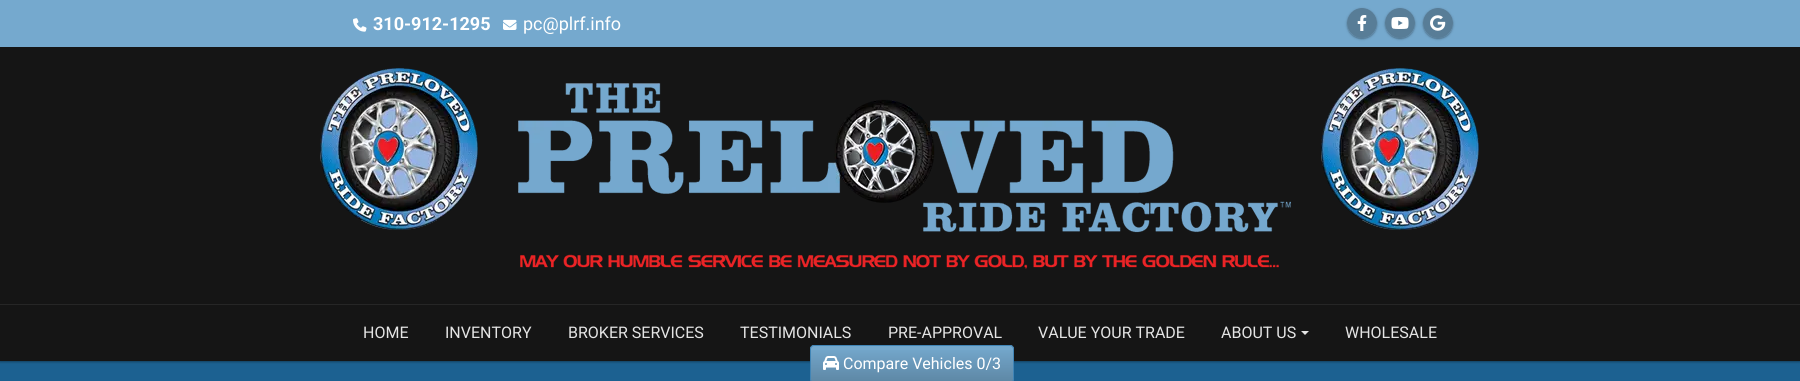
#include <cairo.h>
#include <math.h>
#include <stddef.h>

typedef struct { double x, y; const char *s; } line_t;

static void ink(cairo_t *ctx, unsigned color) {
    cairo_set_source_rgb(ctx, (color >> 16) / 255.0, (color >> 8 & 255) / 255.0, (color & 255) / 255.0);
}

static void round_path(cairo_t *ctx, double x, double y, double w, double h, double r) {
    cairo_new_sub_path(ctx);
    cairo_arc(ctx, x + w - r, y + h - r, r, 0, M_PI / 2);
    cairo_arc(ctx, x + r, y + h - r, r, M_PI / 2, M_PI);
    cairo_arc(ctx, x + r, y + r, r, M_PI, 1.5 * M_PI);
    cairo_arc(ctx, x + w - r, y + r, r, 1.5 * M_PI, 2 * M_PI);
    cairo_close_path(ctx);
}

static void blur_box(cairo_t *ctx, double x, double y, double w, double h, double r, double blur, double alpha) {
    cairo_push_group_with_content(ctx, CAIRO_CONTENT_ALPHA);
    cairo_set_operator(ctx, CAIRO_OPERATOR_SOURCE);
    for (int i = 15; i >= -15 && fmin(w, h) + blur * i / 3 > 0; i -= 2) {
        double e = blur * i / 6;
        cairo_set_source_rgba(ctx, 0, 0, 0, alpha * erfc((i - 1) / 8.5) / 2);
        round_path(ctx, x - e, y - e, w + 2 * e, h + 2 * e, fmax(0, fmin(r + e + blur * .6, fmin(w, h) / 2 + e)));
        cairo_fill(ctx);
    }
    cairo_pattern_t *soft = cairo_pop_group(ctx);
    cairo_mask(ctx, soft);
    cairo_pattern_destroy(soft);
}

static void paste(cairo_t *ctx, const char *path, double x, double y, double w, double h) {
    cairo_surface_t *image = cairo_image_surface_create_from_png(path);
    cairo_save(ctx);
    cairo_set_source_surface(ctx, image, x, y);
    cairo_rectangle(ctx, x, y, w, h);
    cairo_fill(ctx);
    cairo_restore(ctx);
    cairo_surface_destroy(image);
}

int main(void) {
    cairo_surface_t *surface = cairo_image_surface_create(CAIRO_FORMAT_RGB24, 1800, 381);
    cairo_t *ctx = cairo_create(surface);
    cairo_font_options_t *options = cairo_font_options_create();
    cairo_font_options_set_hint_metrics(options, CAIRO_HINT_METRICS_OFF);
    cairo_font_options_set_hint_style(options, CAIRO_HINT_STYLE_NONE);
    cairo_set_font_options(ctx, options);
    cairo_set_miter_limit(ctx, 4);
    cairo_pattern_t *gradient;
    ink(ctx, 0x151515);
    cairo_paint(ctx);
    ink(ctx, 0x1C6191);
    cairo_rectangle(ctx, 0, 361, 1800, 20);
    cairo_fill(ctx);
    cairo_save(ctx);
    cairo_rectangle(ctx, 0, 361, 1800, 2);
    cairo_clip(ctx);
    ink(ctx, 0x000000);
    blur_box(ctx, 0, 1, 1800, 361, 0, 0.5, 0.2);
    cairo_restore(ctx);
    cairo_save(ctx);
    cairo_rectangle(ctx, 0, 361, 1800, 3);
    cairo_clip(ctx);
    ink(ctx, 0x000000);
    blur_box(ctx, -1, 0, 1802, 363, 0, 1, 0.1);
    cairo_restore(ctx);
    ink(ctx, 0x75A9CE);
    cairo_rectangle(ctx, 0, 0, 1800, 47);
    cairo_fill(ctx);
    paste(ctx, "media/1.png", 353, 18, 14, 14);
    cairo_select_font_face(ctx, "Roboto", CAIRO_FONT_SLANT_NORMAL, CAIRO_FONT_WEIGHT_BOLD);
    cairo_set_font_size(ctx, 18);
    ink(ctx, 0xFFFFFF);
    cairo_move_to(ctx, 373, 30);
    cairo_show_text(ctx, "310-912-1295");
    paste(ctx, "media/2.png", 503, 19, 14, 11);
    cairo_select_font_face(ctx, "Roboto", CAIRO_FONT_SLANT_NORMAL, CAIRO_FONT_WEIGHT_NORMAL);
    cairo_move_to(ctx, 523, 30);
    cairo_show_text(ctx, "pc@plrf.info");
    cairo_save(ctx);
    cairo_set_fill_rule(ctx, CAIRO_FILL_RULE_EVEN_ODD);
    cairo_new_path(ctx);
    cairo_move_to(ctx, 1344, 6);
    cairo_line_to(ctx, 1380, 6);
    cairo_line_to(ctx, 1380, 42);
    cairo_line_to(ctx, 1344, 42);
    cairo_close_path(ctx);
    cairo_move_to(ctx, 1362, 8);
    cairo_curve_to(ctx, 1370.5, 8, 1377, 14.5, 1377, 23);
    cairo_curve_to(ctx, 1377, 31.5, 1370.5, 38, 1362, 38);
    cairo_curve_to(ctx, 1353.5, 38, 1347, 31.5, 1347, 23);
    cairo_curve_to(ctx, 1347, 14.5, 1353.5, 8, 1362, 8);
    cairo_close_path(ctx);
    cairo_clip(ctx);
    ink(ctx, 0x000000);
    blur_box(ctx, 1347, 9, 30, 30, 15, 0.5, 0.2);
    cairo_restore(ctx);
    cairo_save(ctx);
    cairo_set_fill_rule(ctx, CAIRO_FILL_RULE_EVEN_ODD);
    cairo_new_path(ctx);
    cairo_move_to(ctx, 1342, 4);
    cairo_line_to(ctx, 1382, 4);
    cairo_line_to(ctx, 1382, 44);
    cairo_line_to(ctx, 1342, 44);
    cairo_close_path(ctx);
    cairo_move_to(ctx, 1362, 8);
    cairo_curve_to(ctx, 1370.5, 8, 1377, 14.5, 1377, 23);
    cairo_curve_to(ctx, 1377, 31.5, 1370.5, 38, 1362, 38);
    cairo_curve_to(ctx, 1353.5, 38, 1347, 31.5, 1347, 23);
    cairo_curve_to(ctx, 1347, 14.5, 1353.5, 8, 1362, 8);
    cairo_close_path(ctx);
    cairo_clip(ctx);
    ink(ctx, 0x000000);
    blur_box(ctx, 1346, 8, 32, 32, 16, 1, 0.1);
    cairo_restore(ctx);
    cairo_set_source_rgba(ctx, 0.082, 0.082, 0.082, 0.3);
    cairo_arc(ctx, 1362, 23, 15, 0, 2 * M_PI);
    cairo_fill(ctx);
    paste(ctx, "media/3.png", 1357, 15, 10, 16);
    cairo_save(ctx);
    cairo_set_fill_rule(ctx, CAIRO_FILL_RULE_EVEN_ODD);
    cairo_new_path(ctx);
    cairo_move_to(ctx, 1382, 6);
    cairo_line_to(ctx, 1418, 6);
    cairo_line_to(ctx, 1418, 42);
    cairo_line_to(ctx, 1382, 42);
    cairo_close_path(ctx);
    cairo_move_to(ctx, 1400, 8);
    cairo_curve_to(ctx, 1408.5, 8, 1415, 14.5, 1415, 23);
    cairo_curve_to(ctx, 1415, 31.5, 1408.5, 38, 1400, 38);
    cairo_curve_to(ctx, 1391.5, 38, 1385, 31.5, 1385, 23);
    cairo_curve_to(ctx, 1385, 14.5, 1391.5, 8, 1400, 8);
    cairo_close_path(ctx);
    cairo_clip(ctx);
    ink(ctx, 0x000000);
    blur_box(ctx, 1385, 9, 30, 30, 15, 0.5, 0.2);
    cairo_restore(ctx);
    cairo_save(ctx);
    cairo_set_fill_rule(ctx, CAIRO_FILL_RULE_EVEN_ODD);
    cairo_new_path(ctx);
    cairo_move_to(ctx, 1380, 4);
    cairo_line_to(ctx, 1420, 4);
    cairo_line_to(ctx, 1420, 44);
    cairo_line_to(ctx, 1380, 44);
    cairo_close_path(ctx);
    cairo_move_to(ctx, 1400, 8);
    cairo_curve_to(ctx, 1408.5, 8, 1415, 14.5, 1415, 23);
    cairo_curve_to(ctx, 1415, 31.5, 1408.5, 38, 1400, 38);
    cairo_curve_to(ctx, 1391.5, 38, 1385, 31.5, 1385, 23);
    cairo_curve_to(ctx, 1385, 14.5, 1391.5, 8, 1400, 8);
    cairo_close_path(ctx);
    cairo_clip(ctx);
    ink(ctx, 0x000000);
    blur_box(ctx, 1384, 8, 32, 32, 16, 1, 0.1);
    cairo_restore(ctx);
    cairo_arc(ctx, 1400, 23, 15, 0, 2 * M_PI);
    cairo_fill(ctx);
    paste(ctx, "media/4.png", 1391, 17, 18, 12);
    cairo_save(ctx);
    cairo_set_fill_rule(ctx, CAIRO_FILL_RULE_EVEN_ODD);
    cairo_new_path(ctx);
    cairo_move_to(ctx, 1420, 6);
    cairo_line_to(ctx, 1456, 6);
    cairo_line_to(ctx, 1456, 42);
    cairo_line_to(ctx, 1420, 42);
    cairo_close_path(ctx);
    cairo_move_to(ctx, 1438, 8);
    cairo_curve_to(ctx, 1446.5, 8, 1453, 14.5, 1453, 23);
    cairo_curve_to(ctx, 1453, 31.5, 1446.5, 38, 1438, 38);
    cairo_curve_to(ctx, 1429.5, 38, 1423, 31.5, 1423, 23);
    cairo_curve_to(ctx, 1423, 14.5, 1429.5, 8, 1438, 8);
    cairo_close_path(ctx);
    cairo_clip(ctx);
    ink(ctx, 0x000000);
    blur_box(ctx, 1423, 9, 30, 30, 15, 0.5, 0.2);
    cairo_restore(ctx);
    cairo_save(ctx);
    cairo_set_fill_rule(ctx, CAIRO_FILL_RULE_EVEN_ODD);
    cairo_new_path(ctx);
    cairo_move_to(ctx, 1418, 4);
    cairo_line_to(ctx, 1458, 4);
    cairo_line_to(ctx, 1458, 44);
    cairo_line_to(ctx, 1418, 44);
    cairo_close_path(ctx);
    cairo_move_to(ctx, 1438, 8);
    cairo_curve_to(ctx, 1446.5, 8, 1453, 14.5, 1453, 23);
    cairo_curve_to(ctx, 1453, 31.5, 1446.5, 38, 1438, 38);
    cairo_curve_to(ctx, 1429.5, 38, 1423, 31.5, 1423, 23);
    cairo_curve_to(ctx, 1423, 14.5, 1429.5, 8, 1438, 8);
    cairo_close_path(ctx);
    cairo_clip(ctx);
    ink(ctx, 0x000000);
    blur_box(ctx, 1422, 8, 32, 32, 16, 1, 0.1);
    cairo_restore(ctx);
    cairo_arc(ctx, 1438, 23, 15, 0, 2 * M_PI);
    cairo_fill(ctx);
    paste(ctx, "media/5.png", 1430, 15, 16, 16);
    paste(ctx, "media/6.png", 320, 68, 1159, 201);
    ink(ctx, 0x262626);
    cairo_rectangle(ctx, 0, 304, 1800, 1);
    cairo_fill(ctx);
    cairo_set_font_size(ctx, 16);
    ink(ctx, 0xE4E4E4);
    {
        static const line_t items[] = {
            {363, 338, "HOME"},
            {445, 338, "INVENTORY"},
            {568, 338, "BROKER SERVICES"},
            {740, 338, "TESTIMONIALS"},
            {888, 338, "PRE-APPROVAL"},
            {1038, 338, "VALUE YOUR TRADE"},
            {1221, 338, "ABOUT US"},
        };
        for (size_t i = 0; i < sizeof items / sizeof *items; i++) {
            cairo_move_to(ctx, items[i].x, items[i].y);
            cairo_show_text(ctx, items[i].s);
        }
    }
    cairo_new_path(ctx);
    cairo_move_to(ctx, 1301, 331);
    cairo_line_to(ctx, 1309, 331);
    cairo_line_to(ctx, 1305, 335);
    cairo_close_path(ctx);
    cairo_fill(ctx);
    cairo_move_to(ctx, 1345, 338);
    cairo_show_text(ctx, "WHOLESALE");
    ink(ctx, 0x75A9CE);
    round_path(ctx, 810, 345, 204, 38, 4);
    cairo_fill(ctx);
    gradient = cairo_pattern_create_linear(912, 346, 912, 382);
    cairo_pattern_add_color_stop_rgba(gradient, 0, 0, 0, 0, 0);
    cairo_pattern_add_color_stop_rgba(gradient, 1, 0, 0, 0, 0.2);
    cairo_set_source(ctx, gradient);
    cairo_pattern_destroy(gradient);
    cairo_rectangle(ctx, 810, 350, 204, 31);
    cairo_fill(ctx);
    round_path(ctx, 810.5, 345.5, 203, 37, 3.5);
    ink(ctx, 0x4185B6);
    cairo_set_line_width(ctx, 1);
    cairo_stroke(ctx);
    paste(ctx, "media/7.png", 823, 356, 16, 14);
    ink(ctx, 0xFFFFFF);
    cairo_move_to(ctx, 843, 369);
    cairo_show_text(ctx, "Compare Vehicles 0/3");
    cairo_surface_write_to_png(surface, "image.png");
    cairo_font_options_destroy(options);
    cairo_destroy(ctx);
    cairo_surface_destroy(surface);
    return 0;
}
